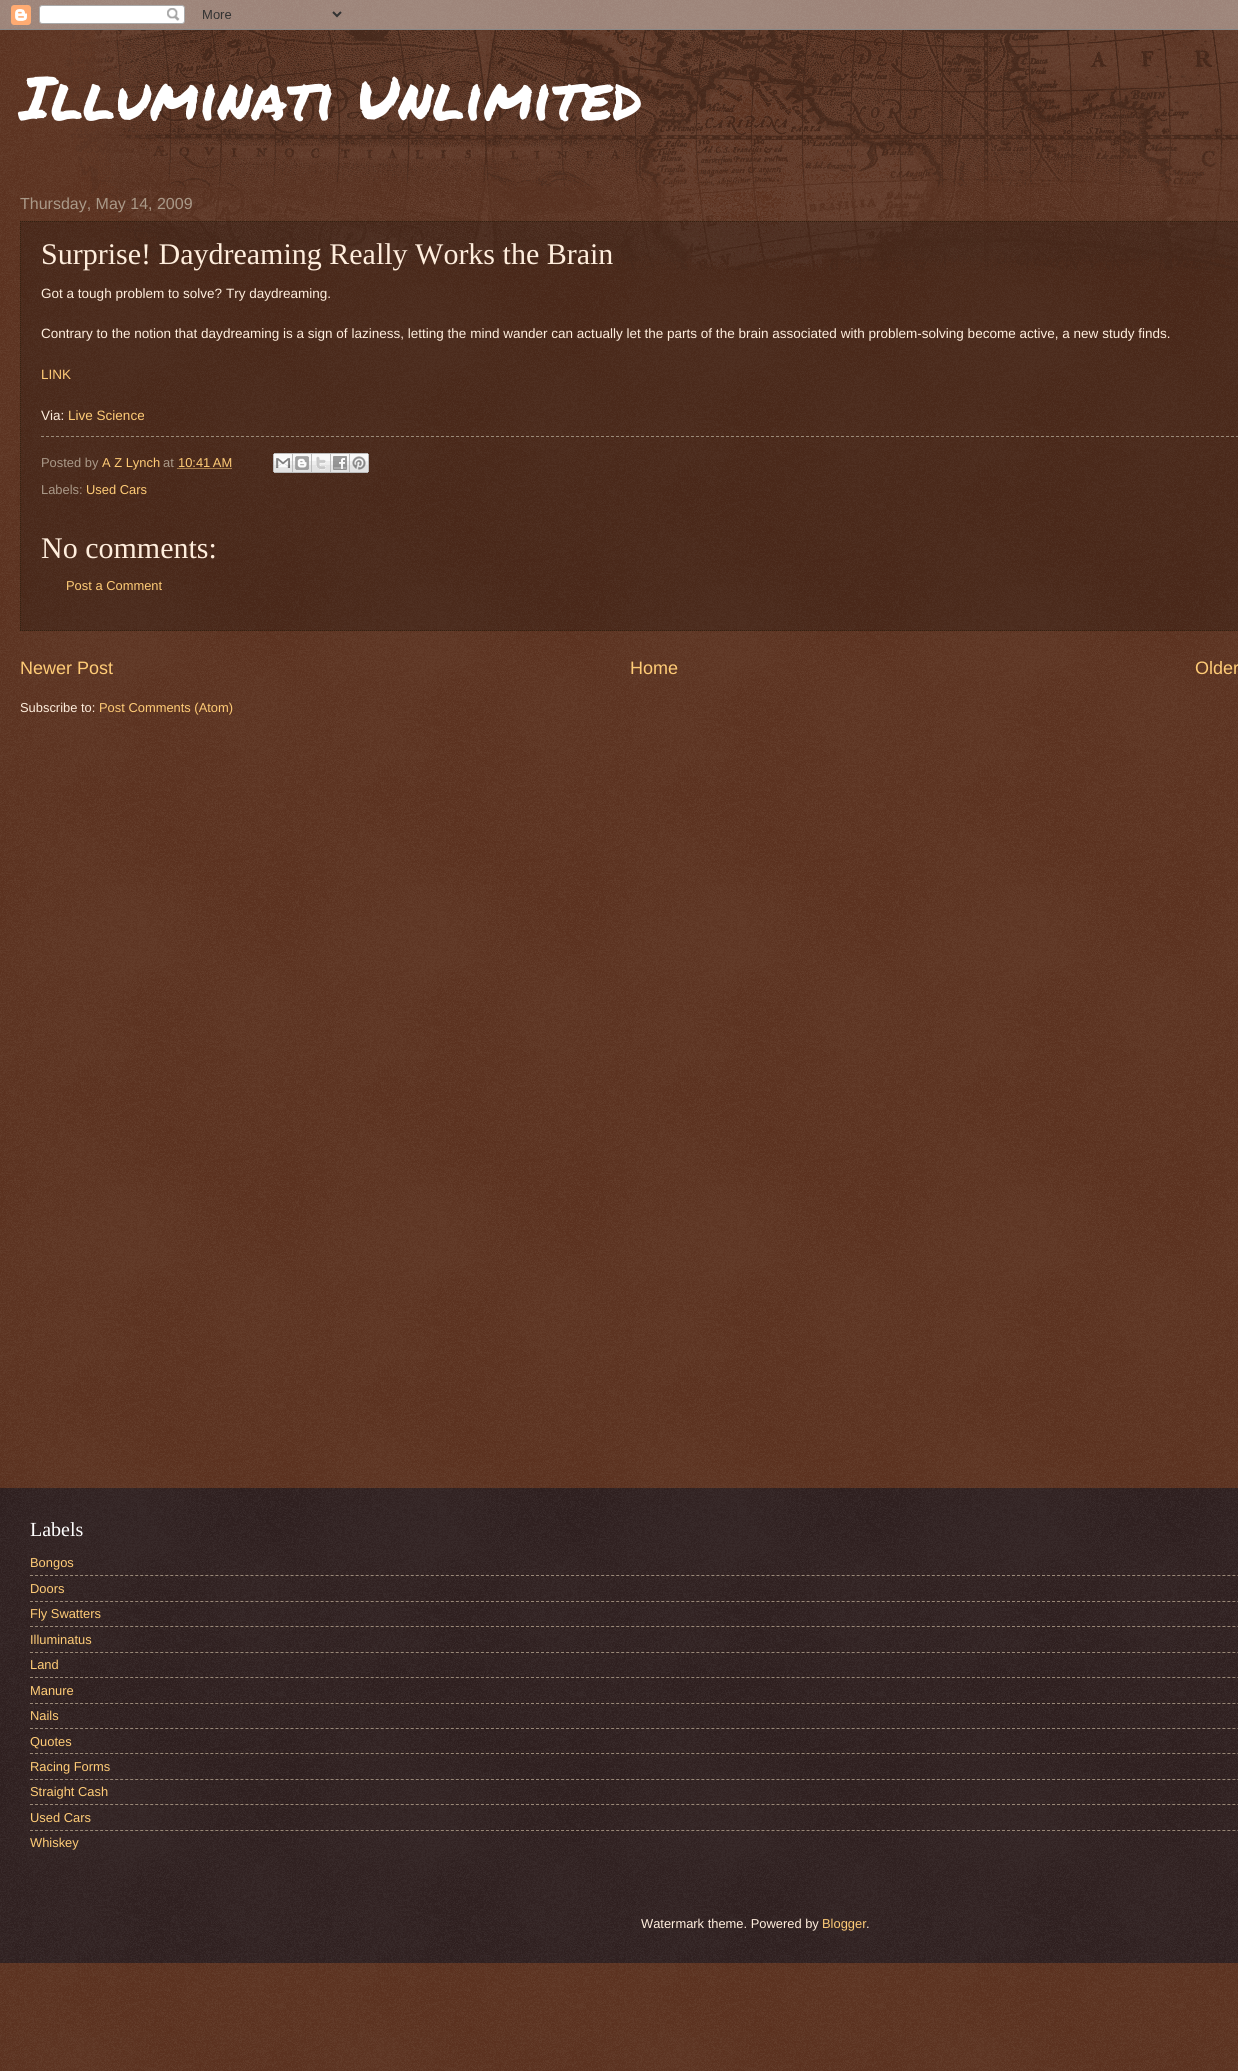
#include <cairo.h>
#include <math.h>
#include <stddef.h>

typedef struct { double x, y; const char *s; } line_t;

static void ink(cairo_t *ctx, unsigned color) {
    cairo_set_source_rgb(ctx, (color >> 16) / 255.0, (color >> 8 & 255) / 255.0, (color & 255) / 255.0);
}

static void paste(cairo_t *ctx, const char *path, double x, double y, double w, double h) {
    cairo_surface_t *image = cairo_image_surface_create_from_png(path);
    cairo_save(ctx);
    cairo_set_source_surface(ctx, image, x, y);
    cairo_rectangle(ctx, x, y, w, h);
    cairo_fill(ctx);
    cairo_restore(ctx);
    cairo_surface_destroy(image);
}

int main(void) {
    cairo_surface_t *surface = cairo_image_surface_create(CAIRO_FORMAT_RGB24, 1238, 2071);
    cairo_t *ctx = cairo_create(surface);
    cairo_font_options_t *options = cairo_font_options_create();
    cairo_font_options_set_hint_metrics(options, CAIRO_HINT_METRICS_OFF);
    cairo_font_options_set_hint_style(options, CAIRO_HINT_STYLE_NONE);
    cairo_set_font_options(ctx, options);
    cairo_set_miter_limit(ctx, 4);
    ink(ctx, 0x441500);
    cairo_paint(ctx);
    paste(ctx, "media/1.png", 0, 0, 1238, 2071);
    paste(ctx, "media/2.png", 0, 0, 1238, 30);
    paste(ctx, "media/3.png", 64, 30, 1174, 240);
    cairo_select_font_face(ctx, "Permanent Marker", CAIRO_FONT_SLANT_NORMAL, CAIRO_FONT_WEIGHT_NORMAL);
    cairo_set_font_size(ctx, 60);
    ink(ctx, 0xFFFFFF);
    cairo_move_to(ctx, 20, 120);
    cairo_show_text(ctx, "Illuminati Unlimited");
    cairo_select_font_face(ctx, "Liberation Sans", CAIRO_FONT_SLANT_NORMAL, CAIRO_FONT_WEIGHT_NORMAL);
    cairo_set_font_size(ctx, 16);
    ink(ctx, 0xAA9988);
    cairo_move_to(ctx, 20, 209);
    cairo_show_text(ctx, "Thursday, May 14, 2009");
    cairo_set_source_rgba(ctx, 0, 0, 0, 0.2);
    cairo_rectangle(ctx, 20, 221, 1218, 410);
    cairo_fill(ctx);
    cairo_new_path(ctx);
    cairo_move_to(ctx, 20, 221.5);
    cairo_line_to(ctx, 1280, 221.5);
    ink(ctx, 0x332211);
    cairo_set_line_width(ctx, 1);
    cairo_set_dash(ctx, (double[]){1, 1}, 2, 0);
    cairo_stroke(ctx);
    cairo_new_path(ctx);
    cairo_move_to(ctx, 20, 630.5);
    cairo_line_to(ctx, 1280, 630.5);
    cairo_stroke(ctx);
    cairo_new_path(ctx);
    cairo_move_to(ctx, 20.5, 221);
    cairo_line_to(ctx, 20.5, 631);
    cairo_stroke(ctx);
    cairo_select_font_face(ctx, "Liberation Serif", CAIRO_FONT_SLANT_NORMAL, CAIRO_FONT_WEIGHT_NORMAL);
    cairo_set_font_size(ctx, 30);
    ink(ctx, 0xFFEEDD);
    cairo_move_to(ctx, 41, 264);
    cairo_show_text(ctx, "Surprise! Daydreaming Really Works the Brain");
    cairo_select_font_face(ctx, "Liberation Sans", CAIRO_FONT_SLANT_NORMAL, CAIRO_FONT_WEIGHT_NORMAL);
    cairo_set_font_size(ctx, 13.52);
    cairo_move_to(ctx, 41, 298);
    cairo_show_text(ctx, "Got a tough problem to solve? Try daydreaming.");
    cairo_move_to(ctx, 41, 338);
    cairo_show_text(ctx, "Contrary to the notion that daydreaming is a sign of laziness, letting the mind wander can actually let the parts of the brain associated with problem-solving become active, a new study finds.");
    ink(ctx, 0xFFCC77);
    cairo_move_to(ctx, 41, 379);
    cairo_show_text(ctx, "LINK");
    ink(ctx, 0xFFEEDD);
    cairo_move_to(ctx, 41, 420);
    cairo_show_text(ctx, "Via:");
    ink(ctx, 0xFFCC77);
    cairo_move_to(ctx, 68, 420);
    cairo_show_text(ctx, "Live Science");
    cairo_new_path(ctx);
    cairo_move_to(ctx, 41, 436.5);
    cairo_line_to(ctx, 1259, 436.5);
    ink(ctx, 0x998877);
    cairo_set_dash(ctx, (double[]){3, 2}, 2, 0);
    cairo_stroke(ctx);
    cairo_set_font_size(ctx, 12.9);
    ink(ctx, 0xAA9988);
    cairo_move_to(ctx, 41, 467);
    cairo_show_text(ctx, "Posted by");
    ink(ctx, 0xFFCC77);
    cairo_move_to(ctx, 102, 467);
    cairo_show_text(ctx, "A Z Lynch");
    ink(ctx, 0xAA9988);
    cairo_move_to(ctx, 163, 467);
    cairo_show_text(ctx, "at");
    ink(ctx, 0xFFCC77);
    cairo_move_to(ctx, 178, 467);
    cairo_show_text(ctx, "10:41 AM");
    cairo_new_path(ctx);
    cairo_move_to(ctx, 177.5, 468.5);
    cairo_line_to(ctx, 232, 468.5);
    cairo_set_dash(ctx, (double[]){1, 1}, 2, 0);
    cairo_stroke(ctx);
    paste(ctx, "media/4.png", 273, 453, 20, 20);
    paste(ctx, "media/5.png", 293, 453, 19, 20);
    paste(ctx, "media/6.png", 312, 453, 19, 20);
    paste(ctx, "media/7.png", 331, 453, 19, 20);
    paste(ctx, "media/8.png", 350, 453, 19, 20);
    ink(ctx, 0xAA9988);
    cairo_move_to(ctx, 41, 494);
    cairo_show_text(ctx, "Labels:");
    ink(ctx, 0xFFCC77);
    cairo_move_to(ctx, 86, 494);
    cairo_show_text(ctx, "Used Cars");
    cairo_select_font_face(ctx, "Liberation Serif", CAIRO_FONT_SLANT_NORMAL, CAIRO_FONT_WEIGHT_NORMAL);
    cairo_set_font_size(ctx, 30);
    ink(ctx, 0xFFEEDD);
    cairo_move_to(ctx, 41, 558);
    cairo_show_text(ctx, "No comments:");
    cairo_select_font_face(ctx, "Liberation Sans", CAIRO_FONT_SLANT_NORMAL, CAIRO_FONT_WEIGHT_NORMAL);
    cairo_set_font_size(ctx, 12.9);
    ink(ctx, 0xFFCC77);
    cairo_move_to(ctx, 66, 590);
    cairo_show_text(ctx, "Post a Comment");
    cairo_set_font_size(ctx, 18);
    {
        static const line_t items[] = {
            {20, 674, "Newer Post"},
            {630, 674, "Home"},
            {1195, 674, "Older"},
        };
        for (size_t i = 0; i < sizeof items / sizeof *items; i++) {
            cairo_move_to(ctx, items[i].x, items[i].y);
            cairo_show_text(ctx, items[i].s);
        }
    }
    cairo_set_font_size(ctx, 12.9);
    ink(ctx, 0xFFEEDD);
    cairo_move_to(ctx, 20, 712);
    cairo_show_text(ctx, "Subscribe to:");
    ink(ctx, 0xFFCC77);
    cairo_move_to(ctx, 99, 712);
    cairo_show_text(ctx, "Post Comments (Atom)");
    ink(ctx, 0x110000);
    cairo_rectangle(ctx, 0, 1488, 1238, 475);
    cairo_fill(ctx);
    paste(ctx, "media/9.png", 0, 1488, 1238, 475);
    cairo_select_font_face(ctx, "Liberation Serif", CAIRO_FONT_SLANT_NORMAL, CAIRO_FONT_WEIGHT_NORMAL);
    cairo_set_font_size(ctx, 20);
    ink(ctx, 0xFFFFFF);
    cairo_move_to(ctx, 30, 1536);
    cairo_show_text(ctx, "Labels");
    cairo_select_font_face(ctx, "Liberation Sans", CAIRO_FONT_SLANT_NORMAL, CAIRO_FONT_WEIGHT_NORMAL);
    cairo_set_font_size(ctx, 12.9);
    ink(ctx, 0xFFCC77);
    cairo_move_to(ctx, 30, 1567);
    cairo_show_text(ctx, "Bongos");
    cairo_new_path(ctx);
    cairo_move_to(ctx, 30, 1575.5);
    cairo_line_to(ctx, 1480, 1575.5);
    ink(ctx, 0x998877);
    cairo_set_dash(ctx, (double[]){3, 2.01}, 2, 0);
    cairo_stroke(ctx);
    ink(ctx, 0xFFCC77);
    cairo_move_to(ctx, 30, 1593);
    cairo_show_text(ctx, "Doors");
    cairo_new_path(ctx);
    cairo_move_to(ctx, 30, 1601.5);
    cairo_line_to(ctx, 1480, 1601.5);
    ink(ctx, 0x998877);
    cairo_stroke(ctx);
    ink(ctx, 0xFFCC77);
    cairo_move_to(ctx, 30, 1618);
    cairo_show_text(ctx, "Fly Swatters");
    cairo_new_path(ctx);
    cairo_move_to(ctx, 30, 1626.5);
    cairo_line_to(ctx, 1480, 1626.5);
    ink(ctx, 0x998877);
    cairo_stroke(ctx);
    ink(ctx, 0xFFCC77);
    cairo_move_to(ctx, 30, 1644);
    cairo_show_text(ctx, "Illuminatus");
    cairo_new_path(ctx);
    cairo_move_to(ctx, 30, 1652.5);
    cairo_line_to(ctx, 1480, 1652.5);
    ink(ctx, 0x998877);
    cairo_stroke(ctx);
    ink(ctx, 0xFFCC77);
    cairo_move_to(ctx, 30, 1669);
    cairo_show_text(ctx, "Land");
    cairo_new_path(ctx);
    cairo_move_to(ctx, 30, 1677.5);
    cairo_line_to(ctx, 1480, 1677.5);
    ink(ctx, 0x998877);
    cairo_stroke(ctx);
    ink(ctx, 0xFFCC77);
    cairo_move_to(ctx, 30, 1695);
    cairo_show_text(ctx, "Manure");
    cairo_new_path(ctx);
    cairo_move_to(ctx, 30, 1703.5);
    cairo_line_to(ctx, 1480, 1703.5);
    ink(ctx, 0x998877);
    cairo_stroke(ctx);
    ink(ctx, 0xFFCC77);
    cairo_move_to(ctx, 30, 1720);
    cairo_show_text(ctx, "Nails");
    cairo_new_path(ctx);
    cairo_move_to(ctx, 30, 1728.5);
    cairo_line_to(ctx, 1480, 1728.5);
    ink(ctx, 0x998877);
    cairo_stroke(ctx);
    ink(ctx, 0xFFCC77);
    cairo_move_to(ctx, 30, 1746);
    cairo_show_text(ctx, "Quotes");
    cairo_new_path(ctx);
    cairo_move_to(ctx, 30, 1753.5);
    cairo_line_to(ctx, 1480, 1753.5);
    ink(ctx, 0x998877);
    cairo_stroke(ctx);
    ink(ctx, 0xFFCC77);
    cairo_move_to(ctx, 30, 1771);
    cairo_show_text(ctx, "Racing Forms");
    cairo_new_path(ctx);
    cairo_move_to(ctx, 30, 1779.5);
    cairo_line_to(ctx, 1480, 1779.5);
    ink(ctx, 0x998877);
    cairo_stroke(ctx);
    ink(ctx, 0xFFCC77);
    cairo_move_to(ctx, 30, 1796);
    cairo_show_text(ctx, "Straight Cash");
    cairo_new_path(ctx);
    cairo_move_to(ctx, 30, 1804.5);
    cairo_line_to(ctx, 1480, 1804.5);
    ink(ctx, 0x998877);
    cairo_stroke(ctx);
    ink(ctx, 0xFFCC77);
    cairo_move_to(ctx, 30, 1822);
    cairo_show_text(ctx, "Used Cars");
    cairo_new_path(ctx);
    cairo_move_to(ctx, 30, 1830.5);
    cairo_line_to(ctx, 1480, 1830.5);
    ink(ctx, 0x998877);
    cairo_stroke(ctx);
    ink(ctx, 0xFFCC77);
    cairo_move_to(ctx, 30, 1847);
    cairo_show_text(ctx, "Whiskey");
    ink(ctx, 0xFFEEDD);
    cairo_move_to(ctx, 641, 1928);
    cairo_show_text(ctx, "Watermark theme. Powered by");
    ink(ctx, 0xFFCC77);
    cairo_move_to(ctx, 822, 1928);
    cairo_show_text(ctx, "Blogger");
    ink(ctx, 0xFFEEDD);
    cairo_move_to(ctx, 866, 1928);
    cairo_show_text(ctx, ".");
    cairo_surface_write_to_png(surface, "image.png");
    cairo_font_options_destroy(options);
    cairo_destroy(ctx);
    cairo_surface_destroy(surface);
    return 0;
}
